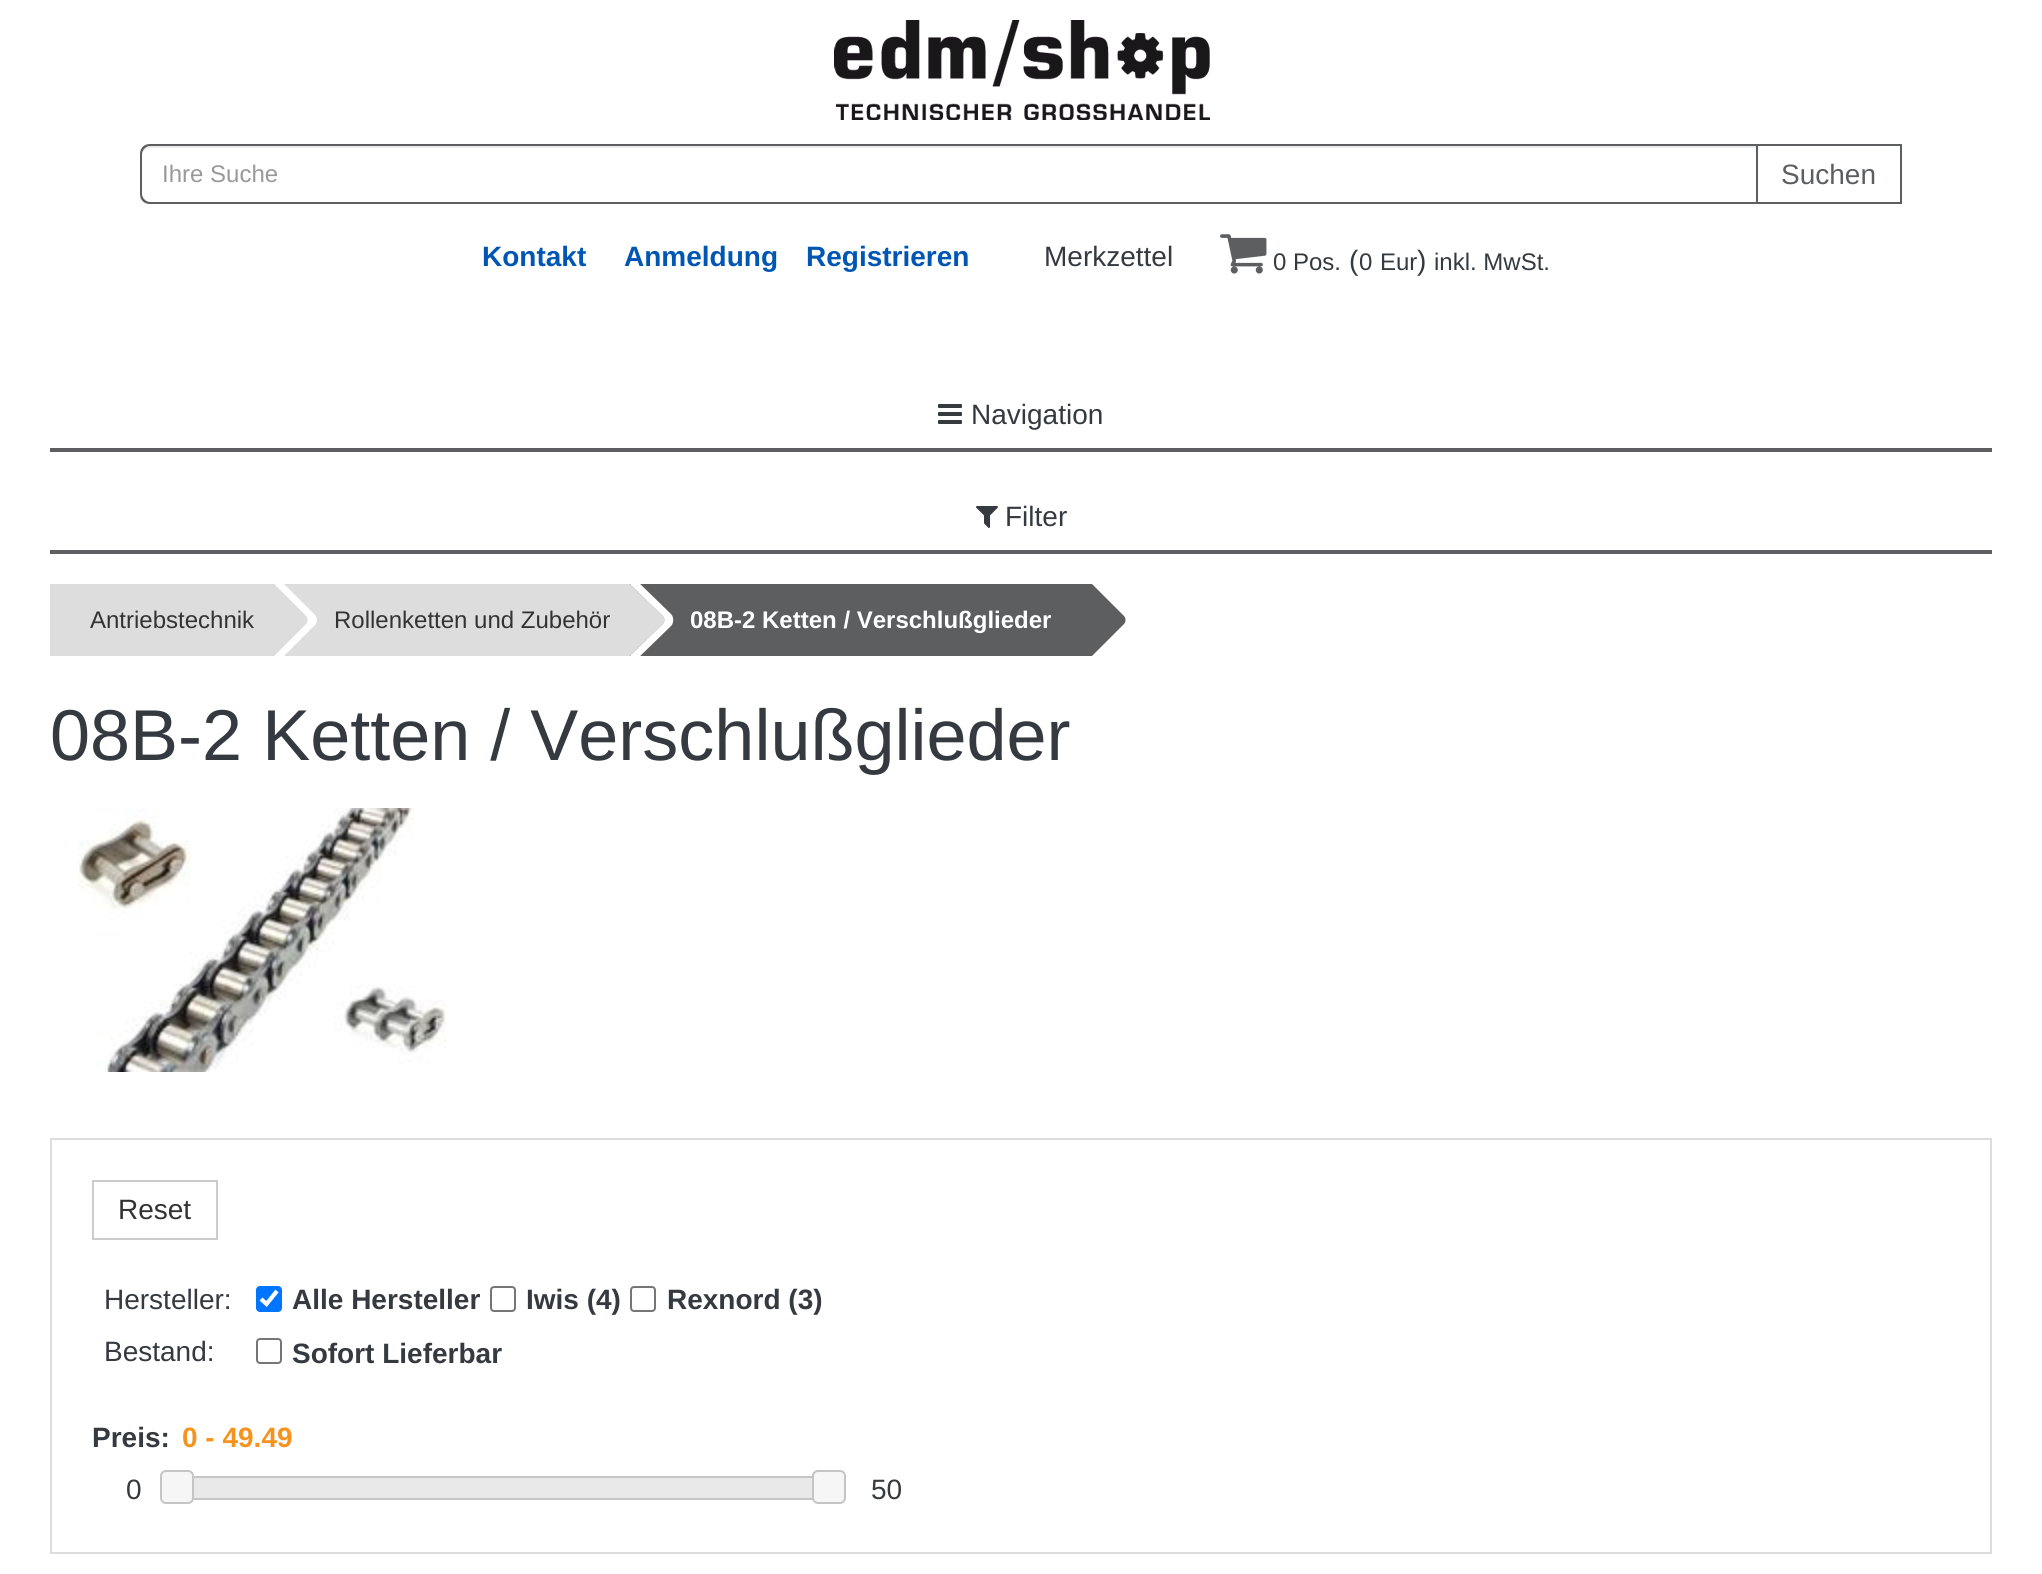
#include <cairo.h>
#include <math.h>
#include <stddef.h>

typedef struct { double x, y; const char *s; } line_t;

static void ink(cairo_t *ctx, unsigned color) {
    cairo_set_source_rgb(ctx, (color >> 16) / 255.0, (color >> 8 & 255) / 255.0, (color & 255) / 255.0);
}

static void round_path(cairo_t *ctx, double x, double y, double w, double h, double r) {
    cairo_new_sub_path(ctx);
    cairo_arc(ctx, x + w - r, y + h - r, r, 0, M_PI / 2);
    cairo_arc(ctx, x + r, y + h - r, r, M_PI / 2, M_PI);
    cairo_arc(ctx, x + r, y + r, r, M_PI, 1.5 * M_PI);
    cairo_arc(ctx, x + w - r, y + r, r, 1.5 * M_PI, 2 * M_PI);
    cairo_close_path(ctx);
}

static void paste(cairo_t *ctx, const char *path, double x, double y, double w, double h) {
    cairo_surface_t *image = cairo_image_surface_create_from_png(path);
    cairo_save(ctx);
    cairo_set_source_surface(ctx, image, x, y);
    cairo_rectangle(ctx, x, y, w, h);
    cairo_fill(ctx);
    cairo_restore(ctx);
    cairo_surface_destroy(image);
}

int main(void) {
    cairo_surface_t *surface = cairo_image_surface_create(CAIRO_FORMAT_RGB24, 2042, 1574);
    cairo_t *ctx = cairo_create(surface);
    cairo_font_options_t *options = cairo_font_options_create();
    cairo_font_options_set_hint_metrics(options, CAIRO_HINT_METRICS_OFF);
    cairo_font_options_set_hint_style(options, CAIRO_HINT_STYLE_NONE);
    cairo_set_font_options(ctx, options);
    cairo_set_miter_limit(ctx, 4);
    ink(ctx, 0xFFFFFF);
    cairo_paint(ctx);
    paste(ctx, "media/1.png", 834, 20, 376, 100);
    ink(ctx, 0xECECEC);
    cairo_new_path(ctx);
    cairo_move_to(ctx, 150, 148);
    cairo_line_to(ctx, 1758, 148);
    cairo_line_to(ctx, 1758, 146);
    cairo_line_to(ctx, 150, 146);
    cairo_curve_to(ctx, 144, 146, 142, 151, 142, 156);
    cairo_curve_to(ctx, 142, 152, 146, 148, 150, 148);
    cairo_close_path(ctx);
    cairo_fill(ctx);
    ink(ctx, 0x5D5E60);
    cairo_set_fill_rule(ctx, CAIRO_FILL_RULE_EVEN_ODD);
    cairo_new_path(ctx);
    cairo_move_to(ctx, 150, 144);
    cairo_line_to(ctx, 1758, 144);
    cairo_line_to(ctx, 1758, 204);
    cairo_line_to(ctx, 150, 204);
    cairo_curve_to(ctx, 144, 204, 140, 200, 140, 194);
    cairo_line_to(ctx, 140, 154);
    cairo_curve_to(ctx, 140, 148, 144, 144, 150, 144);
    cairo_close_path(ctx);
    cairo_move_to(ctx, 150, 146);
    cairo_line_to(ctx, 1758, 146);
    cairo_line_to(ctx, 1758, 202);
    cairo_line_to(ctx, 150, 202);
    cairo_curve_to(ctx, 146, 202, 142, 198, 142, 194);
    cairo_line_to(ctx, 142, 154);
    cairo_curve_to(ctx, 142, 150, 146, 146, 150, 146);
    cairo_close_path(ctx);
    cairo_fill(ctx);
    cairo_select_font_face(ctx, "Liberation Sans", CAIRO_FONT_SLANT_NORMAL, CAIRO_FONT_WEIGHT_NORMAL);
    cairo_set_font_size(ctx, 24);
    ink(ctx, 0x999999);
    cairo_move_to(ctx, 162, 182);
    cairo_show_text(ctx, "Ihre Suche");
    cairo_rectangle(ctx, 1757, 145, 144, 58);
    ink(ctx, 0x5D5E60);
    cairo_stroke(ctx);
    cairo_set_font_size(ctx, 28);
    cairo_move_to(ctx, 1781, 184);
    cairo_show_text(ctx, "Suchen");
    cairo_select_font_face(ctx, "Liberation Sans", CAIRO_FONT_SLANT_NORMAL, CAIRO_FONT_WEIGHT_BOLD);
    ink(ctx, 0x0056B3);
    {
        static const line_t items[] = {
            {482, 266, "Kontakt"},
            {624, 266, "Anmeldung"},
            {806, 266, "Registrieren"},
        };
        for (size_t i = 0; i < sizeof items / sizeof *items; i++) {
            cairo_move_to(ctx, items[i].x, items[i].y);
            cairo_show_text(ctx, items[i].s);
        }
    }
    cairo_select_font_face(ctx, "Liberation Sans", CAIRO_FONT_SLANT_NORMAL, CAIRO_FONT_WEIGHT_NORMAL);
    ink(ctx, 0x343A40);
    cairo_move_to(ctx, 1044, 266);
    cairo_show_text(ctx, "Merkzettel");
    paste(ctx, "media/2.png", 1220, 234, 47, 40);
    cairo_set_font_size(ctx, 24);
    cairo_move_to(ctx, 1273, 270);
    cairo_show_text(ctx, "0 Pos.");
    cairo_set_font_size(ctx, 28);
    cairo_move_to(ctx, 1349, 270);
    cairo_show_text(ctx, "(");
    cairo_set_font_size(ctx, 24);
    cairo_move_to(ctx, 1359, 270);
    cairo_show_text(ctx, "0");
    cairo_move_to(ctx, 1380, 270);
    cairo_show_text(ctx, "Eur");
    cairo_set_font_size(ctx, 28);
    cairo_move_to(ctx, 1417, 270);
    cairo_show_text(ctx, ")");
    cairo_set_font_size(ctx, 24);
    cairo_move_to(ctx, 1434, 270);
    cairo_show_text(ctx, "inkl. MwSt.");
    ink(ctx, 0x5D5E60);
    cairo_rectangle(ctx, 50, 448, 1942, 4);
    cairo_fill(ctx);
    paste(ctx, "media/3.png", 938, 404, 24, 20);
    cairo_set_font_size(ctx, 28);
    ink(ctx, 0x343A40);
    cairo_move_to(ctx, 971, 424);
    cairo_show_text(ctx, "Navigation");
    ink(ctx, 0x5D5E60);
    cairo_rectangle(ctx, 50, 550, 1942, 4);
    cairo_fill(ctx);
    paste(ctx, "media/4.png", 976, 506, 22, 22);
    ink(ctx, 0x343A40);
    cairo_move_to(ctx, 1005, 526);
    cairo_show_text(ctx, "Filter");
    ink(ctx, 0xDDDDDD);
    cairo_rectangle(ctx, 50, 584, 580, 72);
    cairo_fill(ctx);
    cairo_set_font_size(ctx, 24);
    ink(ctx, 0x333333);
    cairo_move_to(ctx, 90, 628);
    cairo_show_text(ctx, "Antriebstechnik");
    ink(ctx, 0xFFFFFF);
    cairo_set_fill_rule(ctx, CAIRO_FILL_RULE_WINDING);
    cairo_new_path(ctx);
    cairo_move_to(ctx, 280, 580);
    cairo_line_to(ctx, 275, 585);
    cairo_line_to(ctx, 306, 616);
    cairo_curve_to(ctx, 308, 618, 308, 622, 306, 624);
    cairo_line_to(ctx, 275, 655);
    cairo_line_to(ctx, 280, 660);
    cairo_line_to(ctx, 314, 626);
    cairo_curve_to(ctx, 318, 623, 318, 617, 314, 614);
    cairo_close_path(ctx);
    cairo_fill(ctx);
    cairo_new_path(ctx);
    cairo_move_to(ctx, 278, 580);
    cairo_line_to(ctx, 274, 584);
    cairo_line_to(ctx, 306, 616);
    cairo_curve_to(ctx, 308, 618, 308, 622, 306, 624);
    cairo_line_to(ctx, 274, 656);
    cairo_line_to(ctx, 278, 660);
    cairo_line_to(ctx, 312, 626);
    cairo_curve_to(ctx, 316, 623, 316, 617, 312, 614);
    cairo_close_path(ctx);
    cairo_fill(ctx);
    ink(ctx, 0xDDDDDD);
    cairo_new_path(ctx);
    cairo_move_to(ctx, 274, 584);
    cairo_line_to(ctx, 306, 616);
    cairo_curve_to(ctx, 308, 618, 308, 622, 306, 624);
    cairo_line_to(ctx, 274, 656);
    cairo_curve_to(ctx, 254, 636, 254, 604, 274, 584);
    cairo_close_path(ctx);
    cairo_fill(ctx);
    ink(ctx, 0x333333);
    cairo_move_to(ctx, 334, 628);
    cairo_show_text(ctx, "Rollenketten und Zubehör");
    ink(ctx, 0x5D5E60);
    cairo_rectangle(ctx, 630, 584, 462, 72);
    cairo_fill(ctx);
    ink(ctx, 0xFFFFFF);
    cairo_new_path(ctx);
    cairo_move_to(ctx, 636, 580);
    cairo_line_to(ctx, 631, 585);
    cairo_line_to(ctx, 663, 616);
    cairo_curve_to(ctx, 665, 618, 665, 622, 663, 624);
    cairo_line_to(ctx, 631, 655);
    cairo_line_to(ctx, 636, 660);
    cairo_line_to(ctx, 671, 626);
    cairo_curve_to(ctx, 674, 623, 674, 617, 671, 614);
    cairo_close_path(ctx);
    cairo_fill(ctx);
    cairo_new_path(ctx);
    cairo_move_to(ctx, 634, 580);
    cairo_line_to(ctx, 629, 585);
    cairo_line_to(ctx, 630, 584);
    cairo_line_to(ctx, 663, 616);
    cairo_curve_to(ctx, 665, 618, 665, 622, 663, 624);
    cairo_line_to(ctx, 630, 656);
    cairo_line_to(ctx, 634, 660);
    cairo_line_to(ctx, 669, 626);
    cairo_curve_to(ctx, 672, 623, 672, 617, 669, 614);
    cairo_close_path(ctx);
    cairo_fill(ctx);
    ink(ctx, 0xDDDDDD);
    cairo_new_path(ctx);
    cairo_move_to(ctx, 630, 584);
    cairo_line_to(ctx, 663, 616);
    cairo_curve_to(ctx, 665, 618, 665, 622, 663, 624);
    cairo_line_to(ctx, 630, 656);
    cairo_curve_to(ctx, 610, 636, 610, 604, 630, 584);
    cairo_close_path(ctx);
    cairo_fill(ctx);
    cairo_select_font_face(ctx, "Liberation Sans", CAIRO_FONT_SLANT_NORMAL, CAIRO_FONT_WEIGHT_BOLD);
    ink(ctx, 0xFFFFFF);
    cairo_move_to(ctx, 690, 628);
    cairo_show_text(ctx, "08B-2 Ketten / Verschlußglieder");
    ink(ctx, 0x5D5E60);
    cairo_new_path(ctx);
    cairo_move_to(ctx, 1092, 584);
    cairo_line_to(ctx, 1124, 616);
    cairo_curve_to(ctx, 1126, 618, 1126, 622, 1124, 624);
    cairo_line_to(ctx, 1092, 656);
    cairo_curve_to(ctx, 1072, 636, 1072, 604, 1092, 584);
    cairo_close_path(ctx);
    cairo_fill(ctx);
    cairo_select_font_face(ctx, "Liberation Sans", CAIRO_FONT_SLANT_NORMAL, CAIRO_FONT_WEIGHT_NORMAL);
    cairo_set_font_size(ctx, 72);
    ink(ctx, 0x343A40);
    cairo_move_to(ctx, 50, 760);
    cairo_show_text(ctx, "08B-2 Ketten / Verschlußglieder");
    paste(ctx, "media/5.png", 77, 808, 370, 264);
    cairo_rectangle(ctx, 51, 1139, 1940, 414);
    ink(ctx, 0xDDDDDD);
    cairo_stroke(ctx);
    cairo_rectangle(ctx, 93, 1181, 124, 58);
    ink(ctx, 0xCCCCCC);
    cairo_stroke(ctx);
    cairo_set_font_size(ctx, 28);
    ink(ctx, 0x333333);
    cairo_move_to(ctx, 118, 1219);
    cairo_show_text(ctx, "Reset");
    ink(ctx, 0x343A40);
    cairo_move_to(ctx, 104, 1309);
    cairo_show_text(ctx, "Hersteller:");
    ink(ctx, 0x0075FF);
    round_path(ctx, 256, 1286, 26, 26, 4);
    cairo_fill(ctx);
    cairo_new_path(ctx);
    cairo_move_to(ctx, 261, 1299);
    cairo_line_to(ctx, 266.5, 1304);
    cairo_line_to(ctx, 277, 1291);
    ink(ctx, 0xFFFFFF);
    cairo_set_line_width(ctx, 4.2);
    cairo_stroke(ctx);
    cairo_select_font_face(ctx, "Liberation Sans", CAIRO_FONT_SLANT_NORMAL, CAIRO_FONT_WEIGHT_BOLD);
    ink(ctx, 0x343A40);
    cairo_move_to(ctx, 292, 1309);
    cairo_show_text(ctx, "Alle Hersteller");
    round_path(ctx, 491, 1287, 24, 24, 3);
    ink(ctx, 0x767676);
    cairo_set_line_width(ctx, 2);
    cairo_stroke(ctx);
    ink(ctx, 0x343A40);
    cairo_move_to(ctx, 526, 1309);
    cairo_show_text(ctx, "Iwis (4)");
    round_path(ctx, 631, 1287, 24, 24, 3);
    ink(ctx, 0x767676);
    cairo_stroke(ctx);
    ink(ctx, 0x343A40);
    cairo_move_to(ctx, 667, 1309);
    cairo_show_text(ctx, "Rexnord (3)");
    cairo_select_font_face(ctx, "Liberation Sans", CAIRO_FONT_SLANT_NORMAL, CAIRO_FONT_WEIGHT_NORMAL);
    cairo_move_to(ctx, 104, 1361);
    cairo_show_text(ctx, "Bestand:");
    round_path(ctx, 257, 1339, 24, 24, 3);
    ink(ctx, 0x767676);
    cairo_stroke(ctx);
    cairo_select_font_face(ctx, "Liberation Sans", CAIRO_FONT_SLANT_NORMAL, CAIRO_FONT_WEIGHT_BOLD);
    ink(ctx, 0x343A40);
    cairo_move_to(ctx, 292, 1363);
    cairo_show_text(ctx, "Sofort Lieferbar");
    cairo_move_to(ctx, 92, 1447);
    cairo_show_text(ctx, "Preis:");
    ink(ctx, 0xF6931F);
    cairo_move_to(ctx, 182, 1447);
    cairo_show_text(ctx, "0 - 49.49");
    cairo_select_font_face(ctx, "Liberation Sans", CAIRO_FONT_SLANT_NORMAL, CAIRO_FONT_WEIGHT_NORMAL);
    ink(ctx, 0x343A40);
    cairo_move_to(ctx, 126, 1499);
    cairo_show_text(ctx, "0");
    cairo_rectangle(ctx, 177, 1477, 666, 22);
    ink(ctx, 0xC5C5C5);
    cairo_stroke(ctx);
    ink(ctx, 0xF6F6F6);
    round_path(ctx, 161, 1471, 32, 32, 5);
    cairo_fill_preserve(ctx);
    ink(ctx, 0xC5C5C5);
    cairo_stroke(ctx);
    ink(ctx, 0xE9E9E9);
    cairo_rectangle(ctx, 194, 1478, 618, 20);
    cairo_fill(ctx);
    ink(ctx, 0xF6F6F6);
    round_path(ctx, 813, 1471, 32, 32, 5);
    cairo_fill_preserve(ctx);
    ink(ctx, 0xC5C5C5);
    cairo_stroke(ctx);
    ink(ctx, 0x343A40);
    cairo_move_to(ctx, 871, 1499);
    cairo_show_text(ctx, "50");
    cairo_surface_write_to_png(surface, "image.png");
    cairo_font_options_destroy(options);
    cairo_destroy(ctx);
    cairo_surface_destroy(surface);
    return 0;
}
